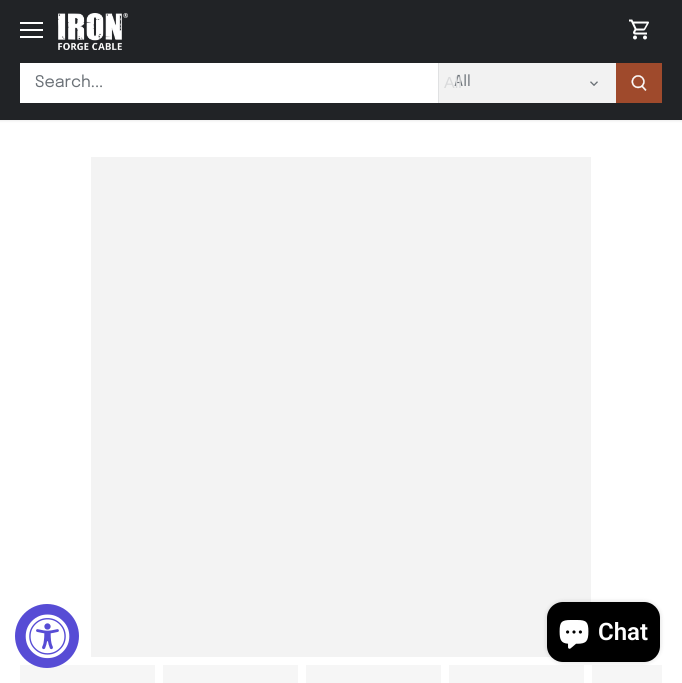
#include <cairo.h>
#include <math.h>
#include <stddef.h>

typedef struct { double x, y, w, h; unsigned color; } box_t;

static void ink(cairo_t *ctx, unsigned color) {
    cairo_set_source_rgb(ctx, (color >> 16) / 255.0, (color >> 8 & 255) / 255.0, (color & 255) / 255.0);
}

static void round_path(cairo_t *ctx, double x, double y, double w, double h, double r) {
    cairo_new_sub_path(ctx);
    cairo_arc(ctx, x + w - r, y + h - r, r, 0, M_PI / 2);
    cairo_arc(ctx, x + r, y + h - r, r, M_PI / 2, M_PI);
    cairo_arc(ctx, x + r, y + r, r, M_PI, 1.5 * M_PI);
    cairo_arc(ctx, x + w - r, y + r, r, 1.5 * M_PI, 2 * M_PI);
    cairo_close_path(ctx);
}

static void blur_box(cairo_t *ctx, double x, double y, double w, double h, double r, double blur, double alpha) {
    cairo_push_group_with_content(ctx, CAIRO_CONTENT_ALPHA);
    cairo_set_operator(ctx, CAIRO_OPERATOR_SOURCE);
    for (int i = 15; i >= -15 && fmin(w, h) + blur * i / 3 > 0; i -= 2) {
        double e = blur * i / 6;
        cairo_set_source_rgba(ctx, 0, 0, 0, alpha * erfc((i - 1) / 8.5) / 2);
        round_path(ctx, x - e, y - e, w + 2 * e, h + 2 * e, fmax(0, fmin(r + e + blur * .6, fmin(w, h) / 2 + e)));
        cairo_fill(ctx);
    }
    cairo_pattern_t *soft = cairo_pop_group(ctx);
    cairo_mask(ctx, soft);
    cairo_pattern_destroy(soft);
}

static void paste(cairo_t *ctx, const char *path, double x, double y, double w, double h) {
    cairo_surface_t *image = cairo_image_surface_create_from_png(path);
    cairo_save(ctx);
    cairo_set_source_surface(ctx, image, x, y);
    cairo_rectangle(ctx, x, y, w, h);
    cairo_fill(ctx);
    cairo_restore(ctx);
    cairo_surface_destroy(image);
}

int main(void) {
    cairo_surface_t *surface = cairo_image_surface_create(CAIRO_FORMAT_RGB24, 682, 683);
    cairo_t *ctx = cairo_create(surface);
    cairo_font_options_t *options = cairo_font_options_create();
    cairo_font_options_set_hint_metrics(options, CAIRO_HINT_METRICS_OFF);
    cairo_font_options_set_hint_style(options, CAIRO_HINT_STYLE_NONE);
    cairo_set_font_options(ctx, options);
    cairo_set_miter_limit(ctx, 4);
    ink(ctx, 0xFFFFFF);
    cairo_paint(ctx);
    ink(ctx, 0x000000);
    blur_box(ctx, -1, -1, 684, 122, 0, 1.5, 0.08);
    {
        static const box_t items[] = {
            {0, 0, 682, 120, 0x212326},
            {20, 22, 23, 2, 0xFFFFFF},
            {20, 29, 23, 2, 0xFFFFFF},
            {20, 36, 23, 2, 0xFFFFFF},
        };
        for (size_t i = 0; i < sizeof items / sizeof *items; i++) {
            ink(ctx, items[i].color);
            cairo_rectangle(ctx, items[i].x, items[i].y, items[i].w, items[i].h);
            cairo_fill(ctx);
        }
    }
    paste(ctx, "media/1.png", 58, 13, 70, 37);
    paste(ctx, "media/2.png", 629, 19, 20, 21);
    cairo_rectangle(ctx, 20, 63, 418, 40);
    cairo_fill(ctx);
    cairo_select_font_face(ctx, "Epilogue", CAIRO_FONT_SLANT_NORMAL, CAIRO_FONT_WEIGHT_NORMAL);
    cairo_set_font_size(ctx, 16);
    ink(ctx, 0x6B7177);
    cairo_move_to(ctx, 35, 87);
    cairo_show_text(ctx, "Search...");
    ink(ctx, 0xF2F2F2);
    cairo_rectangle(ctx, 439, 63, 177, 40);
    cairo_fill(ctx);
    ink(ctx, 0xE0E1E2);
    cairo_rectangle(ctx, 438, 63, 1, 40);
    cairo_fill(ctx);
    cairo_set_font_size(ctx, 15);
    ink(ctx, 0x6B7177);
    cairo_move_to(ctx, 454, 86);
    cairo_show_text(ctx, "All");
    cairo_select_font_face(ctx, "Liberation Sans", CAIRO_FONT_SLANT_NORMAL, CAIRO_FONT_WEIGHT_NORMAL);
    cairo_set_font_size(ctx, 16);
    ink(ctx, 0xD9DADB);
    cairo_move_to(ctx, 444, 88);
    cairo_show_text(ctx, "All");
    paste(ctx, "media/3.png", 590, 81, 8, 5);
    ink(ctx, 0x9F4A2C);
    cairo_rectangle(ctx, 616, 63, 46, 40);
    cairo_fill(ctx);
    paste(ctx, "media/4.png", 631, 75, 16, 16);
    {
        static const box_t items[] = {
            {91, 157, 500, 500, 0xF3F3F3},
            {20, 665, 135, 18, 0xF6F6F6},
            {163, 665, 135, 18, 0xF6F6F6},
            {306, 665, 135, 18, 0xF6F6F6},
            {449, 665, 135, 18, 0xF6F6F6},
            {592, 665, 70, 18, 0xF6F6F6},
        };
        for (size_t i = 0; i < sizeof items / sizeof *items; i++) {
            ink(ctx, items[i].color);
            cairo_rectangle(ctx, items[i].x, items[i].y, items[i].w, items[i].h);
            cairo_fill(ctx);
        }
    }
    ink(ctx, 0x574CD5);
    cairo_arc(ctx, 47, 636, 32, 0, 2 * M_PI);
    cairo_fill(ctx);
    paste(ctx, "media/5.png", 25, 614, 45, 45);
    ink(ctx, 0x000000);
    blur_box(ctx, 547, 602, 113, 60, 16, 2.5, 0.15);
    ink(ctx, 0x000000);
    round_path(ctx, 547, 602, 113, 60, 16);
    cairo_fill(ctx);
    paste(ctx, "media/6.png", 559, 620, 30, 29);
    cairo_select_font_face(ctx, "Roboto SemiBold", CAIRO_FONT_SLANT_NORMAL, CAIRO_FONT_WEIGHT_NORMAL);
    cairo_set_font_size(ctx, 24);
    ink(ctx, 0xFFFFFF);
    cairo_move_to(ctx, 598, 640);
    cairo_show_text(ctx, "Chat");
    cairo_surface_write_to_png(surface, "image.png");
    cairo_font_options_destroy(options);
    cairo_destroy(ctx);
    cairo_surface_destroy(surface);
    return 0;
}
